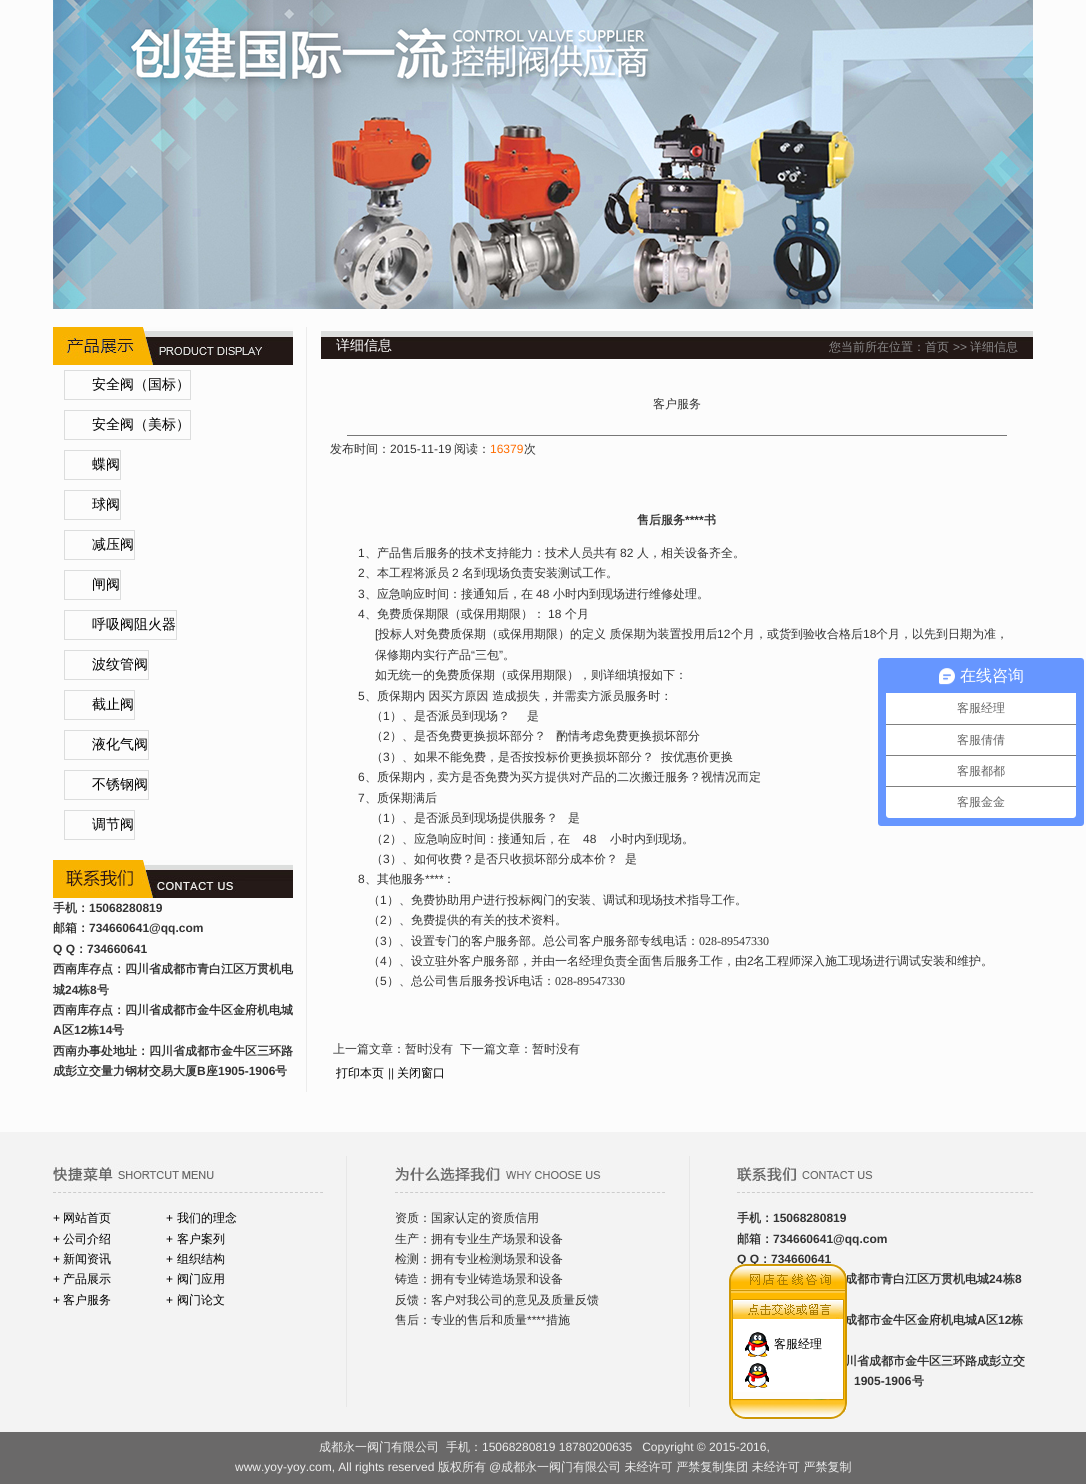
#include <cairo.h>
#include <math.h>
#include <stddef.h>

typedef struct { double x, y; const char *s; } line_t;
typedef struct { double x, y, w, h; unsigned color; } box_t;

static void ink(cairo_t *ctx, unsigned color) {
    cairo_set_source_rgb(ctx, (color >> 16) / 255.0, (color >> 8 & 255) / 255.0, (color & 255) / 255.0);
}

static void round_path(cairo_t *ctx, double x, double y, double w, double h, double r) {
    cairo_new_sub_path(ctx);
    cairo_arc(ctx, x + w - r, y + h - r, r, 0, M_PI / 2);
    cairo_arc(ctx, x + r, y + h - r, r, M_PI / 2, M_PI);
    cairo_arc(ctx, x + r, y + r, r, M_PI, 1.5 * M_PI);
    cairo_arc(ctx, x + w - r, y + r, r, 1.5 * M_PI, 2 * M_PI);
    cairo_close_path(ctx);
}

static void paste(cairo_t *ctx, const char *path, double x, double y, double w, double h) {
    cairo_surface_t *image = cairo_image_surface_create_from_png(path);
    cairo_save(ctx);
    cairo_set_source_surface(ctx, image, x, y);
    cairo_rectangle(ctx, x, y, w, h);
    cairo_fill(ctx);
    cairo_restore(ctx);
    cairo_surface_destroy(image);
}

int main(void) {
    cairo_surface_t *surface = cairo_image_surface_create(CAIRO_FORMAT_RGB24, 1086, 1484);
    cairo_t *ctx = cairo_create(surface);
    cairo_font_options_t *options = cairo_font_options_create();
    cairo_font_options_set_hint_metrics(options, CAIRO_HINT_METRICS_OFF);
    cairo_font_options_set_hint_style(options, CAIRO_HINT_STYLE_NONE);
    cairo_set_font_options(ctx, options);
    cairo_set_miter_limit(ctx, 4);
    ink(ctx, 0xFCFCFC);
    cairo_paint(ctx);
    paste(ctx, "media/1.png", 53, 0, 980, 309);
    paste(ctx, "media/2.png", 53, 327, 240, 38);
    cairo_rectangle(ctx, 64.5, 370.5, 126, 29);
    ink(ctx, 0xDCDDDD);
    cairo_set_line_width(ctx, 1);
    cairo_stroke(ctx);
    cairo_select_font_face(ctx, "WenQuanYi Zen Hei Medium", CAIRO_FONT_SLANT_NORMAL, CAIRO_FONT_WEIGHT_NORMAL);
    cairo_set_font_size(ctx, 14);
    ink(ctx, 0x000000);
    cairo_move_to(ctx, 92, 389);
    cairo_show_text(ctx, "安全阀（国标）");
    cairo_rectangle(ctx, 64.5, 410.5, 126, 29);
    ink(ctx, 0xDCDDDD);
    cairo_stroke(ctx);
    ink(ctx, 0x000000);
    cairo_move_to(ctx, 92, 429);
    cairo_show_text(ctx, "安全阀（美标）");
    cairo_rectangle(ctx, 64.5, 450.5, 56, 29);
    ink(ctx, 0xDCDDDD);
    cairo_stroke(ctx);
    ink(ctx, 0x000000);
    cairo_move_to(ctx, 92, 469);
    cairo_show_text(ctx, "蝶阀");
    cairo_rectangle(ctx, 64.5, 490.5, 56, 29);
    ink(ctx, 0xDCDDDD);
    cairo_stroke(ctx);
    ink(ctx, 0x000000);
    cairo_move_to(ctx, 92, 509);
    cairo_show_text(ctx, "球阀");
    cairo_rectangle(ctx, 64.5, 530.5, 70, 29);
    ink(ctx, 0xDCDDDD);
    cairo_stroke(ctx);
    ink(ctx, 0x000000);
    cairo_move_to(ctx, 92, 549);
    cairo_show_text(ctx, "减压阀");
    cairo_rectangle(ctx, 64.5, 570.5, 56, 29);
    ink(ctx, 0xDCDDDD);
    cairo_stroke(ctx);
    ink(ctx, 0x000000);
    cairo_move_to(ctx, 92, 589);
    cairo_show_text(ctx, "闸阀");
    cairo_rectangle(ctx, 64.5, 610.5, 112, 29);
    ink(ctx, 0xDCDDDD);
    cairo_stroke(ctx);
    ink(ctx, 0x000000);
    cairo_move_to(ctx, 92, 629);
    cairo_show_text(ctx, "呼吸阀阻火器");
    cairo_rectangle(ctx, 64.5, 650.5, 84, 29);
    ink(ctx, 0xDCDDDD);
    cairo_stroke(ctx);
    ink(ctx, 0x000000);
    cairo_move_to(ctx, 92, 669);
    cairo_show_text(ctx, "波纹管阀");
    cairo_rectangle(ctx, 64.5, 690.5, 70, 29);
    ink(ctx, 0xDCDDDD);
    cairo_stroke(ctx);
    ink(ctx, 0x000000);
    cairo_move_to(ctx, 92, 709);
    cairo_show_text(ctx, "截止阀");
    cairo_rectangle(ctx, 64.5, 730.5, 84, 29);
    ink(ctx, 0xDCDDDD);
    cairo_stroke(ctx);
    ink(ctx, 0x000000);
    cairo_move_to(ctx, 92, 749);
    cairo_show_text(ctx, "液化气阀");
    cairo_rectangle(ctx, 64.5, 770.5, 84, 29);
    ink(ctx, 0xDCDDDD);
    cairo_stroke(ctx);
    ink(ctx, 0x000000);
    cairo_move_to(ctx, 92, 789);
    cairo_show_text(ctx, "不锈钢阀");
    cairo_rectangle(ctx, 64.5, 810.5, 70, 29);
    ink(ctx, 0xDCDDDD);
    cairo_stroke(ctx);
    ink(ctx, 0x000000);
    cairo_move_to(ctx, 92, 829);
    cairo_show_text(ctx, "调节阀");
    paste(ctx, "media/3.png", 53, 860, 240, 38);
    cairo_select_font_face(ctx, "WenQuanYi Zen Hei", CAIRO_FONT_SLANT_NORMAL, CAIRO_FONT_WEIGHT_BOLD);
    cairo_set_font_size(ctx, 12);
    ink(ctx, 0x333333);
    cairo_move_to(ctx, 53, 912);
    cairo_show_text(ctx, "手机：");
    cairo_select_font_face(ctx, "Liberation Sans", CAIRO_FONT_SLANT_NORMAL, CAIRO_FONT_WEIGHT_BOLD);
    cairo_move_to(ctx, 89, 912);
    cairo_show_text(ctx, "15068280819");
    cairo_select_font_face(ctx, "WenQuanYi Zen Hei", CAIRO_FONT_SLANT_NORMAL, CAIRO_FONT_WEIGHT_BOLD);
    cairo_move_to(ctx, 53, 932);
    cairo_show_text(ctx, "邮箱：");
    cairo_select_font_face(ctx, "Liberation Sans", CAIRO_FONT_SLANT_NORMAL, CAIRO_FONT_WEIGHT_BOLD);
    cairo_move_to(ctx, 89, 932);
    cairo_show_text(ctx, "734660641@qq.com");
    cairo_move_to(ctx, 53, 953);
    cairo_show_text(ctx, "Q Q");
    cairo_select_font_face(ctx, "WenQuanYi Zen Hei", CAIRO_FONT_SLANT_NORMAL, CAIRO_FONT_WEIGHT_BOLD);
    cairo_move_to(ctx, 75, 953);
    cairo_show_text(ctx, "：");
    cairo_select_font_face(ctx, "Liberation Sans", CAIRO_FONT_SLANT_NORMAL, CAIRO_FONT_WEIGHT_BOLD);
    cairo_move_to(ctx, 87, 953);
    cairo_show_text(ctx, "734660641");
    cairo_select_font_face(ctx, "WenQuanYi Zen Hei", CAIRO_FONT_SLANT_NORMAL, CAIRO_FONT_WEIGHT_BOLD);
    cairo_move_to(ctx, 53, 973);
    cairo_show_text(ctx, "西南库存点：四川省成都市青白江区万贯机电");
    cairo_move_to(ctx, 53, 994);
    cairo_show_text(ctx, "城");
    cairo_select_font_face(ctx, "Liberation Sans", CAIRO_FONT_SLANT_NORMAL, CAIRO_FONT_WEIGHT_BOLD);
    cairo_move_to(ctx, 65, 994);
    cairo_show_text(ctx, "24");
    cairo_select_font_face(ctx, "WenQuanYi Zen Hei", CAIRO_FONT_SLANT_NORMAL, CAIRO_FONT_WEIGHT_BOLD);
    cairo_move_to(ctx, 78, 994);
    cairo_show_text(ctx, "栋");
    cairo_select_font_face(ctx, "Liberation Sans", CAIRO_FONT_SLANT_NORMAL, CAIRO_FONT_WEIGHT_BOLD);
    cairo_move_to(ctx, 90, 994);
    cairo_show_text(ctx, "8");
    cairo_select_font_face(ctx, "WenQuanYi Zen Hei", CAIRO_FONT_SLANT_NORMAL, CAIRO_FONT_WEIGHT_BOLD);
    cairo_move_to(ctx, 97, 994);
    cairo_show_text(ctx, "号");
    cairo_move_to(ctx, 53, 1014);
    cairo_show_text(ctx, "西南库存点：四川省成都市金牛区金府机电城");
    cairo_select_font_face(ctx, "Liberation Sans", CAIRO_FONT_SLANT_NORMAL, CAIRO_FONT_WEIGHT_BOLD);
    cairo_move_to(ctx, 53, 1034);
    cairo_show_text(ctx, "A");
    cairo_select_font_face(ctx, "WenQuanYi Zen Hei", CAIRO_FONT_SLANT_NORMAL, CAIRO_FONT_WEIGHT_BOLD);
    cairo_move_to(ctx, 62, 1034);
    cairo_show_text(ctx, "区");
    cairo_select_font_face(ctx, "Liberation Sans", CAIRO_FONT_SLANT_NORMAL, CAIRO_FONT_WEIGHT_BOLD);
    cairo_move_to(ctx, 74, 1034);
    cairo_show_text(ctx, "12");
    cairo_select_font_face(ctx, "WenQuanYi Zen Hei", CAIRO_FONT_SLANT_NORMAL, CAIRO_FONT_WEIGHT_BOLD);
    cairo_move_to(ctx, 87, 1034);
    cairo_show_text(ctx, "栋");
    cairo_select_font_face(ctx, "Liberation Sans", CAIRO_FONT_SLANT_NORMAL, CAIRO_FONT_WEIGHT_BOLD);
    cairo_move_to(ctx, 99, 1034);
    cairo_show_text(ctx, "14");
    cairo_select_font_face(ctx, "WenQuanYi Zen Hei", CAIRO_FONT_SLANT_NORMAL, CAIRO_FONT_WEIGHT_BOLD);
    {
        static const line_t items[] = {
            {112, 1034, "号"},
            {53, 1055, "西南办事处地址：四川省成都市金牛区三环路"},
            {53, 1075, "成彭立交量力钢材交易大厦"},
        };
        for (size_t i = 0; i < sizeof items / sizeof *items; i++) {
            cairo_move_to(ctx, items[i].x, items[i].y);
            cairo_show_text(ctx, items[i].s);
        }
    }
    cairo_select_font_face(ctx, "Liberation Sans", CAIRO_FONT_SLANT_NORMAL, CAIRO_FONT_WEIGHT_BOLD);
    cairo_move_to(ctx, 197, 1075);
    cairo_show_text(ctx, "B");
    cairo_select_font_face(ctx, "WenQuanYi Zen Hei", CAIRO_FONT_SLANT_NORMAL, CAIRO_FONT_WEIGHT_BOLD);
    cairo_move_to(ctx, 206, 1075);
    cairo_show_text(ctx, "座");
    cairo_select_font_face(ctx, "Liberation Sans", CAIRO_FONT_SLANT_NORMAL, CAIRO_FONT_WEIGHT_BOLD);
    cairo_move_to(ctx, 218, 1075);
    cairo_show_text(ctx, "1905-1906");
    cairo_select_font_face(ctx, "WenQuanYi Zen Hei", CAIRO_FONT_SLANT_NORMAL, CAIRO_FONT_WEIGHT_BOLD);
    cairo_move_to(ctx, 275, 1075);
    cairo_show_text(ctx, "号");
    ink(ctx, 0xECECEC);
    cairo_rectangle(ctx, 306, 327, 1, 765);
    cairo_fill(ctx);
    paste(ctx, "media/4.png", 321, 331, 207, 28);
    cairo_select_font_face(ctx, "WenQuanYi Zen Hei Medium", CAIRO_FONT_SLANT_NORMAL, CAIRO_FONT_WEIGHT_NORMAL);
    cairo_set_font_size(ctx, 14);
    ink(ctx, 0xFFFFFF);
    cairo_move_to(ctx, 336, 350);
    cairo_show_text(ctx, "详细信息");
    paste(ctx, "media/5.png", 528, 331, 505, 28);
    cairo_set_font_size(ctx, 12);
    ink(ctx, 0x898989);
    cairo_move_to(ctx, 829, 351);
    cairo_show_text(ctx, "您当前所在位置：首页");
    cairo_select_font_face(ctx, "Liberation Sans", CAIRO_FONT_SLANT_NORMAL, CAIRO_FONT_WEIGHT_NORMAL);
    cairo_move_to(ctx, 953, 351);
    cairo_show_text(ctx, ">>");
    cairo_select_font_face(ctx, "WenQuanYi Zen Hei Medium", CAIRO_FONT_SLANT_NORMAL, CAIRO_FONT_WEIGHT_NORMAL);
    cairo_move_to(ctx, 970, 351);
    cairo_show_text(ctx, "详细信息");
    ink(ctx, 0x777777);
    cairo_rectangle(ctx, 347, 435, 660, 1);
    cairo_fill(ctx);
    ink(ctx, 0x333333);
    cairo_move_to(ctx, 653, 408);
    cairo_show_text(ctx, "客户服务");
    cairo_move_to(ctx, 330, 453);
    cairo_show_text(ctx, "发布时间：");
    cairo_select_font_face(ctx, "Liberation Sans", CAIRO_FONT_SLANT_NORMAL, CAIRO_FONT_WEIGHT_NORMAL);
    cairo_move_to(ctx, 390, 453);
    cairo_show_text(ctx, "2015-11-19");
    cairo_select_font_face(ctx, "WenQuanYi Zen Hei Medium", CAIRO_FONT_SLANT_NORMAL, CAIRO_FONT_WEIGHT_NORMAL);
    cairo_move_to(ctx, 454, 453);
    cairo_show_text(ctx, "阅读：");
    cairo_select_font_face(ctx, "Liberation Sans", CAIRO_FONT_SLANT_NORMAL, CAIRO_FONT_WEIGHT_NORMAL);
    ink(ctx, 0xFF6C00);
    cairo_move_to(ctx, 490, 453);
    cairo_show_text(ctx, "16379");
    cairo_select_font_face(ctx, "WenQuanYi Zen Hei Medium", CAIRO_FONT_SLANT_NORMAL, CAIRO_FONT_WEIGHT_NORMAL);
    ink(ctx, 0x333333);
    cairo_move_to(ctx, 524, 453);
    cairo_show_text(ctx, "次");
    cairo_select_font_face(ctx, "WenQuanYi Zen Hei", CAIRO_FONT_SLANT_NORMAL, CAIRO_FONT_WEIGHT_BOLD);
    cairo_move_to(ctx, 637, 524);
    cairo_show_text(ctx, "售后服务");
    cairo_select_font_face(ctx, "Liberation Sans", CAIRO_FONT_SLANT_NORMAL, CAIRO_FONT_WEIGHT_BOLD);
    cairo_move_to(ctx, 685, 524);
    cairo_show_text(ctx, "****");
    cairo_select_font_face(ctx, "WenQuanYi Zen Hei", CAIRO_FONT_SLANT_NORMAL, CAIRO_FONT_WEIGHT_BOLD);
    cairo_move_to(ctx, 704, 524);
    cairo_show_text(ctx, "书");
    cairo_select_font_face(ctx, "Liberation Sans", CAIRO_FONT_SLANT_NORMAL, CAIRO_FONT_WEIGHT_NORMAL);
    cairo_move_to(ctx, 358, 557);
    cairo_show_text(ctx, "1");
    cairo_select_font_face(ctx, "WenQuanYi Zen Hei Medium", CAIRO_FONT_SLANT_NORMAL, CAIRO_FONT_WEIGHT_NORMAL);
    cairo_move_to(ctx, 365, 557);
    cairo_show_text(ctx, "、产品售后服务的技术支持能力：技术人员共有");
    cairo_select_font_face(ctx, "Liberation Sans", CAIRO_FONT_SLANT_NORMAL, CAIRO_FONT_WEIGHT_NORMAL);
    cairo_move_to(ctx, 620, 557);
    cairo_show_text(ctx, "82");
    cairo_select_font_face(ctx, "WenQuanYi Zen Hei Medium", CAIRO_FONT_SLANT_NORMAL, CAIRO_FONT_WEIGHT_NORMAL);
    cairo_move_to(ctx, 637, 557);
    cairo_show_text(ctx, "人，相关设备齐全。");
    cairo_select_font_face(ctx, "Liberation Sans", CAIRO_FONT_SLANT_NORMAL, CAIRO_FONT_WEIGHT_NORMAL);
    cairo_move_to(ctx, 358, 577);
    cairo_show_text(ctx, "2");
    cairo_select_font_face(ctx, "WenQuanYi Zen Hei Medium", CAIRO_FONT_SLANT_NORMAL, CAIRO_FONT_WEIGHT_NORMAL);
    cairo_move_to(ctx, 365, 577);
    cairo_show_text(ctx, "、本工程将派员");
    cairo_select_font_face(ctx, "Liberation Sans", CAIRO_FONT_SLANT_NORMAL, CAIRO_FONT_WEIGHT_NORMAL);
    cairo_move_to(ctx, 452, 577);
    cairo_show_text(ctx, "2");
    cairo_select_font_face(ctx, "WenQuanYi Zen Hei Medium", CAIRO_FONT_SLANT_NORMAL, CAIRO_FONT_WEIGHT_NORMAL);
    cairo_move_to(ctx, 462, 577);
    cairo_show_text(ctx, "名到现场负责安装测试工作。");
    cairo_select_font_face(ctx, "Liberation Sans", CAIRO_FONT_SLANT_NORMAL, CAIRO_FONT_WEIGHT_NORMAL);
    cairo_move_to(ctx, 358, 598);
    cairo_show_text(ctx, "3");
    cairo_select_font_face(ctx, "WenQuanYi Zen Hei Medium", CAIRO_FONT_SLANT_NORMAL, CAIRO_FONT_WEIGHT_NORMAL);
    cairo_move_to(ctx, 365, 598);
    cairo_show_text(ctx, "、应急响应时间：接通知后，在");
    cairo_select_font_face(ctx, "Liberation Sans", CAIRO_FONT_SLANT_NORMAL, CAIRO_FONT_WEIGHT_NORMAL);
    cairo_move_to(ctx, 536, 598);
    cairo_show_text(ctx, "48");
    cairo_select_font_face(ctx, "WenQuanYi Zen Hei Medium", CAIRO_FONT_SLANT_NORMAL, CAIRO_FONT_WEIGHT_NORMAL);
    cairo_move_to(ctx, 553, 598);
    cairo_show_text(ctx, "小时内到现场进行维修处理。");
    cairo_select_font_face(ctx, "Liberation Sans", CAIRO_FONT_SLANT_NORMAL, CAIRO_FONT_WEIGHT_NORMAL);
    cairo_move_to(ctx, 358, 618);
    cairo_show_text(ctx, "4");
    cairo_select_font_face(ctx, "WenQuanYi Zen Hei Medium", CAIRO_FONT_SLANT_NORMAL, CAIRO_FONT_WEIGHT_NORMAL);
    cairo_move_to(ctx, 365, 618);
    cairo_show_text(ctx, "、免费质保期限（或保用期限）：");
    cairo_select_font_face(ctx, "Liberation Sans", CAIRO_FONT_SLANT_NORMAL, CAIRO_FONT_WEIGHT_NORMAL);
    cairo_move_to(ctx, 548, 618);
    cairo_show_text(ctx, "18");
    cairo_select_font_face(ctx, "WenQuanYi Zen Hei Medium", CAIRO_FONT_SLANT_NORMAL, CAIRO_FONT_WEIGHT_NORMAL);
    cairo_move_to(ctx, 565, 618);
    cairo_show_text(ctx, "个月");
    cairo_select_font_face(ctx, "Liberation Sans", CAIRO_FONT_SLANT_NORMAL, CAIRO_FONT_WEIGHT_NORMAL);
    cairo_move_to(ctx, 375, 638);
    cairo_show_text(ctx, "[");
    cairo_select_font_face(ctx, "WenQuanYi Zen Hei Medium", CAIRO_FONT_SLANT_NORMAL, CAIRO_FONT_WEIGHT_NORMAL);
    cairo_move_to(ctx, 378, 638);
    cairo_show_text(ctx, "投标人对免费质保期（或保用期限）的定义 质保期为装置投用后");
    cairo_select_font_face(ctx, "Liberation Sans", CAIRO_FONT_SLANT_NORMAL, CAIRO_FONT_WEIGHT_NORMAL);
    cairo_move_to(ctx, 717, 638);
    cairo_show_text(ctx, "12");
    cairo_select_font_face(ctx, "WenQuanYi Zen Hei Medium", CAIRO_FONT_SLANT_NORMAL, CAIRO_FONT_WEIGHT_NORMAL);
    cairo_move_to(ctx, 731, 638);
    cairo_show_text(ctx, "个月，或货到验收合格后");
    cairo_select_font_face(ctx, "Liberation Sans", CAIRO_FONT_SLANT_NORMAL, CAIRO_FONT_WEIGHT_NORMAL);
    cairo_move_to(ctx, 863, 638);
    cairo_show_text(ctx, "18");
    cairo_select_font_face(ctx, "WenQuanYi Zen Hei Medium", CAIRO_FONT_SLANT_NORMAL, CAIRO_FONT_WEIGHT_NORMAL);
    cairo_move_to(ctx, 876, 638);
    cairo_show_text(ctx, "个月，以先到日期为准，");
    cairo_move_to(ctx, 375, 659);
    cairo_show_text(ctx, "保修期内实行产品");
    cairo_select_font_face(ctx, "Liberation Sans", CAIRO_FONT_SLANT_NORMAL, CAIRO_FONT_WEIGHT_NORMAL);
    cairo_move_to(ctx, 471, 659);
    cairo_show_text(ctx, "“");
    cairo_select_font_face(ctx, "WenQuanYi Zen Hei Medium", CAIRO_FONT_SLANT_NORMAL, CAIRO_FONT_WEIGHT_NORMAL);
    cairo_move_to(ctx, 475, 659);
    cairo_show_text(ctx, "三包");
    cairo_select_font_face(ctx, "Liberation Sans", CAIRO_FONT_SLANT_NORMAL, CAIRO_FONT_WEIGHT_NORMAL);
    cairo_move_to(ctx, 499, 659);
    cairo_show_text(ctx, "”");
    cairo_select_font_face(ctx, "WenQuanYi Zen Hei Medium", CAIRO_FONT_SLANT_NORMAL, CAIRO_FONT_WEIGHT_NORMAL);
    cairo_move_to(ctx, 503, 659);
    cairo_show_text(ctx, "。");
    cairo_move_to(ctx, 375, 679);
    cairo_show_text(ctx, "如无统一的免费质保期（或保用期限），则详细填报如下：");
    cairo_select_font_face(ctx, "Liberation Sans", CAIRO_FONT_SLANT_NORMAL, CAIRO_FONT_WEIGHT_NORMAL);
    cairo_move_to(ctx, 358, 700);
    cairo_show_text(ctx, "5");
    cairo_select_font_face(ctx, "WenQuanYi Zen Hei Medium", CAIRO_FONT_SLANT_NORMAL, CAIRO_FONT_WEIGHT_NORMAL);
    cairo_move_to(ctx, 365, 700);
    cairo_show_text(ctx, "、质保期内 因买方原因 造成损失，并需卖方派员服务时：");
    cairo_move_to(ctx, 371, 720);
    cairo_show_text(ctx, "（");
    cairo_select_font_face(ctx, "Liberation Sans", CAIRO_FONT_SLANT_NORMAL, CAIRO_FONT_WEIGHT_NORMAL);
    cairo_move_to(ctx, 383, 720);
    cairo_show_text(ctx, "1");
    cairo_select_font_face(ctx, "WenQuanYi Zen Hei Medium", CAIRO_FONT_SLANT_NORMAL, CAIRO_FONT_WEIGHT_NORMAL);
    {
        static const line_t items[] = {
            {390, 720, "）、是否派员到现场？"},
            {527, 720, "是"},
            {371, 740, "（"},
        };
        for (size_t i = 0; i < sizeof items / sizeof *items; i++) {
            cairo_move_to(ctx, items[i].x, items[i].y);
            cairo_show_text(ctx, items[i].s);
        }
    }
    cairo_select_font_face(ctx, "Liberation Sans", CAIRO_FONT_SLANT_NORMAL, CAIRO_FONT_WEIGHT_NORMAL);
    cairo_move_to(ctx, 383, 740);
    cairo_show_text(ctx, "2");
    cairo_select_font_face(ctx, "WenQuanYi Zen Hei Medium", CAIRO_FONT_SLANT_NORMAL, CAIRO_FONT_WEIGHT_NORMAL);
    {
        static const line_t items[] = {
            {390, 740, "）、是否免费更换损坏部分？"},
            {556, 740, "酌情考虑免费更换损坏部分"},
            {371, 761, "（"},
        };
        for (size_t i = 0; i < sizeof items / sizeof *items; i++) {
            cairo_move_to(ctx, items[i].x, items[i].y);
            cairo_show_text(ctx, items[i].s);
        }
    }
    cairo_select_font_face(ctx, "Liberation Sans", CAIRO_FONT_SLANT_NORMAL, CAIRO_FONT_WEIGHT_NORMAL);
    cairo_move_to(ctx, 383, 761);
    cairo_show_text(ctx, "3");
    cairo_select_font_face(ctx, "WenQuanYi Zen Hei Medium", CAIRO_FONT_SLANT_NORMAL, CAIRO_FONT_WEIGHT_NORMAL);
    cairo_move_to(ctx, 390, 761);
    cairo_show_text(ctx, "）、如果不能免费，是否按投标价更换损坏部分？");
    cairo_move_to(ctx, 661, 761);
    cairo_show_text(ctx, "按优惠价更换");
    cairo_select_font_face(ctx, "Liberation Sans", CAIRO_FONT_SLANT_NORMAL, CAIRO_FONT_WEIGHT_NORMAL);
    cairo_move_to(ctx, 358, 781);
    cairo_show_text(ctx, "6");
    cairo_select_font_face(ctx, "WenQuanYi Zen Hei Medium", CAIRO_FONT_SLANT_NORMAL, CAIRO_FONT_WEIGHT_NORMAL);
    cairo_move_to(ctx, 365, 781);
    cairo_show_text(ctx, "、质保期内，卖方是否免费为买方提供对产品的二次搬迁服务？视情况而定");
    cairo_select_font_face(ctx, "Liberation Sans", CAIRO_FONT_SLANT_NORMAL, CAIRO_FONT_WEIGHT_NORMAL);
    cairo_move_to(ctx, 358, 802);
    cairo_show_text(ctx, "7");
    cairo_select_font_face(ctx, "WenQuanYi Zen Hei Medium", CAIRO_FONT_SLANT_NORMAL, CAIRO_FONT_WEIGHT_NORMAL);
    cairo_move_to(ctx, 365, 802);
    cairo_show_text(ctx, "、质保期满后");
    cairo_move_to(ctx, 371, 822);
    cairo_show_text(ctx, "（");
    cairo_select_font_face(ctx, "Liberation Sans", CAIRO_FONT_SLANT_NORMAL, CAIRO_FONT_WEIGHT_NORMAL);
    cairo_move_to(ctx, 383, 822);
    cairo_show_text(ctx, "1");
    cairo_select_font_face(ctx, "WenQuanYi Zen Hei Medium", CAIRO_FONT_SLANT_NORMAL, CAIRO_FONT_WEIGHT_NORMAL);
    {
        static const line_t items[] = {
            {390, 822, "）、是否派员到现场提供服务？"},
            {568, 822, "是"},
            {371, 843, "（"},
        };
        for (size_t i = 0; i < sizeof items / sizeof *items; i++) {
            cairo_move_to(ctx, items[i].x, items[i].y);
            cairo_show_text(ctx, items[i].s);
        }
    }
    cairo_select_font_face(ctx, "Liberation Sans", CAIRO_FONT_SLANT_NORMAL, CAIRO_FONT_WEIGHT_NORMAL);
    cairo_move_to(ctx, 383, 843);
    cairo_show_text(ctx, "2");
    cairo_select_font_face(ctx, "WenQuanYi Zen Hei Medium", CAIRO_FONT_SLANT_NORMAL, CAIRO_FONT_WEIGHT_NORMAL);
    cairo_move_to(ctx, 390, 843);
    cairo_show_text(ctx, "）、应急响应时间：接通知后，在");
    cairo_select_font_face(ctx, "Liberation Sans", CAIRO_FONT_SLANT_NORMAL, CAIRO_FONT_WEIGHT_NORMAL);
    cairo_move_to(ctx, 583, 843);
    cairo_show_text(ctx, "48");
    cairo_select_font_face(ctx, "WenQuanYi Zen Hei Medium", CAIRO_FONT_SLANT_NORMAL, CAIRO_FONT_WEIGHT_NORMAL);
    cairo_move_to(ctx, 610, 843);
    cairo_show_text(ctx, "小时内到现场。");
    cairo_move_to(ctx, 371, 863);
    cairo_show_text(ctx, "（");
    cairo_select_font_face(ctx, "Liberation Sans", CAIRO_FONT_SLANT_NORMAL, CAIRO_FONT_WEIGHT_NORMAL);
    cairo_move_to(ctx, 383, 863);
    cairo_show_text(ctx, "3");
    cairo_select_font_face(ctx, "WenQuanYi Zen Hei Medium", CAIRO_FONT_SLANT_NORMAL, CAIRO_FONT_WEIGHT_NORMAL);
    cairo_move_to(ctx, 390, 863);
    cairo_show_text(ctx, "）、如何收费？是否只收损坏部分成本价？");
    cairo_move_to(ctx, 625, 863);
    cairo_show_text(ctx, "是");
    cairo_select_font_face(ctx, "Liberation Sans", CAIRO_FONT_SLANT_NORMAL, CAIRO_FONT_WEIGHT_NORMAL);
    cairo_move_to(ctx, 358, 883);
    cairo_show_text(ctx, "8");
    cairo_select_font_face(ctx, "WenQuanYi Zen Hei Medium", CAIRO_FONT_SLANT_NORMAL, CAIRO_FONT_WEIGHT_NORMAL);
    cairo_move_to(ctx, 365, 883);
    cairo_show_text(ctx, "、其他服务");
    cairo_select_font_face(ctx, "Liberation Sans", CAIRO_FONT_SLANT_NORMAL, CAIRO_FONT_WEIGHT_NORMAL);
    cairo_move_to(ctx, 425, 883);
    cairo_show_text(ctx, "****");
    cairo_select_font_face(ctx, "WenQuanYi Zen Hei Medium", CAIRO_FONT_SLANT_NORMAL, CAIRO_FONT_WEIGHT_NORMAL);
    cairo_move_to(ctx, 443, 883);
    cairo_show_text(ctx, "：");
    cairo_move_to(ctx, 368, 904);
    cairo_show_text(ctx, "（");
    cairo_select_font_face(ctx, "Liberation Sans", CAIRO_FONT_SLANT_NORMAL, CAIRO_FONT_WEIGHT_NORMAL);
    cairo_move_to(ctx, 380, 904);
    cairo_show_text(ctx, "1");
    cairo_select_font_face(ctx, "WenQuanYi Zen Hei Medium", CAIRO_FONT_SLANT_NORMAL, CAIRO_FONT_WEIGHT_NORMAL);
    cairo_move_to(ctx, 387, 904);
    cairo_show_text(ctx, "）、免费协助用户进行投标阀门的安装、调试和现场技术指导工作。");
    cairo_move_to(ctx, 368, 924);
    cairo_show_text(ctx, "（");
    cairo_select_font_face(ctx, "Liberation Sans", CAIRO_FONT_SLANT_NORMAL, CAIRO_FONT_WEIGHT_NORMAL);
    cairo_move_to(ctx, 380, 924);
    cairo_show_text(ctx, "2");
    cairo_select_font_face(ctx, "WenQuanYi Zen Hei Medium", CAIRO_FONT_SLANT_NORMAL, CAIRO_FONT_WEIGHT_NORMAL);
    cairo_move_to(ctx, 387, 924);
    cairo_show_text(ctx, "）、免费提供的有关的技术资料。");
    cairo_move_to(ctx, 368, 945);
    cairo_show_text(ctx, "（");
    cairo_select_font_face(ctx, "Liberation Sans", CAIRO_FONT_SLANT_NORMAL, CAIRO_FONT_WEIGHT_NORMAL);
    cairo_move_to(ctx, 380, 945);
    cairo_show_text(ctx, "3");
    cairo_select_font_face(ctx, "WenQuanYi Zen Hei Medium", CAIRO_FONT_SLANT_NORMAL, CAIRO_FONT_WEIGHT_NORMAL);
    cairo_move_to(ctx, 387, 945);
    cairo_show_text(ctx, "）、设置专门的客户服务部。总公司客户服务部专线电话：");
    cairo_select_font_face(ctx, "Liberation Serif", CAIRO_FONT_SLANT_NORMAL, CAIRO_FONT_WEIGHT_NORMAL);
    cairo_move_to(ctx, 699, 945);
    cairo_show_text(ctx, "028-89547330");
    cairo_select_font_face(ctx, "WenQuanYi Zen Hei Medium", CAIRO_FONT_SLANT_NORMAL, CAIRO_FONT_WEIGHT_NORMAL);
    cairo_move_to(ctx, 368, 965);
    cairo_show_text(ctx, "（");
    cairo_select_font_face(ctx, "Liberation Sans", CAIRO_FONT_SLANT_NORMAL, CAIRO_FONT_WEIGHT_NORMAL);
    cairo_move_to(ctx, 380, 965);
    cairo_show_text(ctx, "4");
    cairo_select_font_face(ctx, "WenQuanYi Zen Hei Medium", CAIRO_FONT_SLANT_NORMAL, CAIRO_FONT_WEIGHT_NORMAL);
    cairo_move_to(ctx, 387, 965);
    cairo_show_text(ctx, "）、设立驻外客户服务部，并由一名经理负责全面售后服务工作，由");
    cairo_select_font_face(ctx, "Liberation Sans", CAIRO_FONT_SLANT_NORMAL, CAIRO_FONT_WEIGHT_NORMAL);
    cairo_move_to(ctx, 747, 965);
    cairo_show_text(ctx, "2");
    cairo_select_font_face(ctx, "WenQuanYi Zen Hei Medium", CAIRO_FONT_SLANT_NORMAL, CAIRO_FONT_WEIGHT_NORMAL);
    cairo_move_to(ctx, 753, 965);
    cairo_show_text(ctx, "名工程师深入施工现场进行调试安装和维护。");
    cairo_move_to(ctx, 368, 985);
    cairo_show_text(ctx, "（");
    cairo_select_font_face(ctx, "Liberation Sans", CAIRO_FONT_SLANT_NORMAL, CAIRO_FONT_WEIGHT_NORMAL);
    cairo_move_to(ctx, 380, 985);
    cairo_show_text(ctx, "5");
    cairo_select_font_face(ctx, "WenQuanYi Zen Hei Medium", CAIRO_FONT_SLANT_NORMAL, CAIRO_FONT_WEIGHT_NORMAL);
    cairo_move_to(ctx, 387, 985);
    cairo_show_text(ctx, "）、总公司售后服务投诉电话：");
    cairo_select_font_face(ctx, "Liberation Serif", CAIRO_FONT_SLANT_NORMAL, CAIRO_FONT_WEIGHT_NORMAL);
    cairo_move_to(ctx, 555, 985);
    cairo_show_text(ctx, "028-89547330");
    cairo_select_font_face(ctx, "WenQuanYi Zen Hei Medium", CAIRO_FONT_SLANT_NORMAL, CAIRO_FONT_WEIGHT_NORMAL);
    cairo_move_to(ctx, 333, 1053);
    cairo_show_text(ctx, "上一篇文章：暂时没有");
    cairo_move_to(ctx, 460, 1053);
    cairo_show_text(ctx, "下一篇文章：暂时没有");
    ink(ctx, 0x000000);
    cairo_move_to(ctx, 336, 1077);
    cairo_show_text(ctx, "打印本页");
    cairo_select_font_face(ctx, "Liberation Sans", CAIRO_FONT_SLANT_NORMAL, CAIRO_FONT_WEIGHT_NORMAL);
    ink(ctx, 0x333333);
    cairo_move_to(ctx, 388, 1077);
    cairo_show_text(ctx, "||");
    cairo_select_font_face(ctx, "WenQuanYi Zen Hei Medium", CAIRO_FONT_SLANT_NORMAL, CAIRO_FONT_WEIGHT_NORMAL);
    ink(ctx, 0x000000);
    cairo_move_to(ctx, 397, 1077);
    cairo_show_text(ctx, "关闭窗口");
    ink(ctx, 0x6696FF);
    round_path(ctx, 878, 658, 206, 168, 3);
    cairo_fill(ctx);
    paste(ctx, "media/6.png", 939, 668, 16, 17);
    cairo_set_font_size(ctx, 16);
    ink(ctx, 0xFFFFFF);
    cairo_move_to(ctx, 960, 681);
    cairo_show_text(ctx, "在线咨询");
    cairo_rectangle(ctx, 886, 693, 190, 31);
    cairo_fill(ctx);
    ink(ctx, 0x808080);
    cairo_rectangle(ctx, 886, 724, 190, 1);
    cairo_fill(ctx);
    cairo_set_font_size(ctx, 12);
    ink(ctx, 0x666666);
    cairo_move_to(ctx, 957, 712);
    cairo_show_text(ctx, "客服经理");
    ink(ctx, 0xFFFFFF);
    cairo_rectangle(ctx, 886, 725, 190, 30);
    cairo_fill(ctx);
    ink(ctx, 0x808080);
    cairo_rectangle(ctx, 886, 755, 190, 1);
    cairo_fill(ctx);
    ink(ctx, 0x666666);
    cairo_move_to(ctx, 957, 744);
    cairo_show_text(ctx, "客服倩倩");
    ink(ctx, 0xFFFFFF);
    cairo_rectangle(ctx, 886, 756, 190, 30);
    cairo_fill(ctx);
    ink(ctx, 0x808080);
    cairo_rectangle(ctx, 886, 786, 190, 1);
    cairo_fill(ctx);
    ink(ctx, 0x666666);
    cairo_move_to(ctx, 957, 775);
    cairo_show_text(ctx, "客服都都");
    ink(ctx, 0xFFFFFF);
    cairo_new_path(ctx);
    cairo_move_to(ctx, 886, 787);
    cairo_line_to(ctx, 1076, 787);
    cairo_line_to(ctx, 1076, 815);
    cairo_curve_to(ctx, 1076, 816.5, 1074.5, 818, 1073, 818);
    cairo_line_to(ctx, 889, 818);
    cairo_curve_to(ctx, 887.5, 818, 886, 816.5, 886, 815);
    cairo_close_path(ctx);
    cairo_fill(ctx);
    ink(ctx, 0x666666);
    cairo_move_to(ctx, 957, 806);
    cairo_show_text(ctx, "客服金金");
    {
        static const box_t items[] = {
            {0, 1132, 1086, 300, 0xF3F3F3},
            {346, 1156, 1, 251, 0xE7E7E7},
            {689, 1156, 1, 251, 0xE7E7E7},
        };
        for (size_t i = 0; i < sizeof items / sizeof *items; i++) {
            ink(ctx, items[i].color);
            cairo_rectangle(ctx, items[i].x, items[i].y, items[i].w, items[i].h);
            cairo_fill(ctx);
        }
    }
    cairo_new_path(ctx);
    cairo_move_to(ctx, 737, 1192.5);
    cairo_line_to(ctx, 1033, 1192.5);
    ink(ctx, 0xCCCCCC);
    cairo_set_dash(ctx, (double[]){3, 1.97}, 2, 0);
    cairo_stroke(ctx);
    paste(ctx, "media/7.png", 737, 1164, 136, 23);
    cairo_new_path(ctx);
    cairo_move_to(ctx, 53, 1192.5);
    cairo_line_to(ctx, 323, 1192.5);
    cairo_set_dash(ctx, (double[]){3, 2.04}, 2, 0);
    cairo_stroke(ctx);
    paste(ctx, "media/8.png", 53, 1164, 161, 23);
    cairo_select_font_face(ctx, "Liberation Sans", CAIRO_FONT_SLANT_NORMAL, CAIRO_FONT_WEIGHT_NORMAL);
    ink(ctx, 0x000000);
    cairo_move_to(ctx, 53, 1222);
    cairo_show_text(ctx, "+");
    cairo_select_font_face(ctx, "WenQuanYi Zen Hei Medium", CAIRO_FONT_SLANT_NORMAL, CAIRO_FONT_WEIGHT_NORMAL);
    cairo_move_to(ctx, 63, 1222);
    cairo_show_text(ctx, "网站首页");
    cairo_select_font_face(ctx, "Liberation Sans", CAIRO_FONT_SLANT_NORMAL, CAIRO_FONT_WEIGHT_NORMAL);
    cairo_move_to(ctx, 166, 1222);
    cairo_show_text(ctx, "+");
    cairo_select_font_face(ctx, "WenQuanYi Zen Hei Medium", CAIRO_FONT_SLANT_NORMAL, CAIRO_FONT_WEIGHT_NORMAL);
    cairo_move_to(ctx, 177, 1222);
    cairo_show_text(ctx, "我们的理念");
    cairo_select_font_face(ctx, "Liberation Sans", CAIRO_FONT_SLANT_NORMAL, CAIRO_FONT_WEIGHT_NORMAL);
    cairo_move_to(ctx, 53, 1243);
    cairo_show_text(ctx, "+");
    cairo_select_font_face(ctx, "WenQuanYi Zen Hei Medium", CAIRO_FONT_SLANT_NORMAL, CAIRO_FONT_WEIGHT_NORMAL);
    cairo_move_to(ctx, 63, 1243);
    cairo_show_text(ctx, "公司介绍");
    cairo_select_font_face(ctx, "Liberation Sans", CAIRO_FONT_SLANT_NORMAL, CAIRO_FONT_WEIGHT_NORMAL);
    cairo_move_to(ctx, 166, 1243);
    cairo_show_text(ctx, "+");
    cairo_select_font_face(ctx, "WenQuanYi Zen Hei Medium", CAIRO_FONT_SLANT_NORMAL, CAIRO_FONT_WEIGHT_NORMAL);
    cairo_move_to(ctx, 177, 1243);
    cairo_show_text(ctx, "客户案列");
    cairo_select_font_face(ctx, "Liberation Sans", CAIRO_FONT_SLANT_NORMAL, CAIRO_FONT_WEIGHT_NORMAL);
    cairo_move_to(ctx, 53, 1263);
    cairo_show_text(ctx, "+");
    cairo_select_font_face(ctx, "WenQuanYi Zen Hei Medium", CAIRO_FONT_SLANT_NORMAL, CAIRO_FONT_WEIGHT_NORMAL);
    cairo_move_to(ctx, 63, 1263);
    cairo_show_text(ctx, "新闻资讯");
    cairo_select_font_face(ctx, "Liberation Sans", CAIRO_FONT_SLANT_NORMAL, CAIRO_FONT_WEIGHT_NORMAL);
    cairo_move_to(ctx, 166, 1263);
    cairo_show_text(ctx, "+");
    cairo_select_font_face(ctx, "WenQuanYi Zen Hei Medium", CAIRO_FONT_SLANT_NORMAL, CAIRO_FONT_WEIGHT_NORMAL);
    cairo_move_to(ctx, 177, 1263);
    cairo_show_text(ctx, "组织结构");
    cairo_select_font_face(ctx, "Liberation Sans", CAIRO_FONT_SLANT_NORMAL, CAIRO_FONT_WEIGHT_NORMAL);
    cairo_move_to(ctx, 53, 1283);
    cairo_show_text(ctx, "+");
    cairo_select_font_face(ctx, "WenQuanYi Zen Hei Medium", CAIRO_FONT_SLANT_NORMAL, CAIRO_FONT_WEIGHT_NORMAL);
    cairo_move_to(ctx, 63, 1283);
    cairo_show_text(ctx, "产品展示");
    cairo_select_font_face(ctx, "Liberation Sans", CAIRO_FONT_SLANT_NORMAL, CAIRO_FONT_WEIGHT_NORMAL);
    cairo_move_to(ctx, 166, 1283);
    cairo_show_text(ctx, "+");
    cairo_select_font_face(ctx, "WenQuanYi Zen Hei Medium", CAIRO_FONT_SLANT_NORMAL, CAIRO_FONT_WEIGHT_NORMAL);
    cairo_move_to(ctx, 177, 1283);
    cairo_show_text(ctx, "阀门应用");
    cairo_select_font_face(ctx, "Liberation Sans", CAIRO_FONT_SLANT_NORMAL, CAIRO_FONT_WEIGHT_NORMAL);
    cairo_move_to(ctx, 53, 1304);
    cairo_show_text(ctx, "+");
    cairo_select_font_face(ctx, "WenQuanYi Zen Hei Medium", CAIRO_FONT_SLANT_NORMAL, CAIRO_FONT_WEIGHT_NORMAL);
    cairo_move_to(ctx, 63, 1304);
    cairo_show_text(ctx, "客户服务");
    cairo_select_font_face(ctx, "Liberation Sans", CAIRO_FONT_SLANT_NORMAL, CAIRO_FONT_WEIGHT_NORMAL);
    cairo_move_to(ctx, 166, 1304);
    cairo_show_text(ctx, "+");
    cairo_select_font_face(ctx, "WenQuanYi Zen Hei Medium", CAIRO_FONT_SLANT_NORMAL, CAIRO_FONT_WEIGHT_NORMAL);
    cairo_move_to(ctx, 177, 1304);
    cairo_show_text(ctx, "阀门论文");
    cairo_new_path(ctx);
    cairo_move_to(ctx, 395, 1192.5);
    cairo_line_to(ctx, 665, 1192.5);
    ink(ctx, 0xCCCCCC);
    cairo_stroke(ctx);
    paste(ctx, "media/9.png", 395, 1164, 207, 23);
    ink(ctx, 0x333333);
    {
        static const line_t items[] = {
            {395, 1222, "资质：国家认定的资质信用"},
            {395, 1243, "生产：拥有专业生产场景和设备"},
            {395, 1263, "检测：拥有专业检测场景和设备"},
            {395, 1283, "铸造：拥有专业铸造场景和设备"},
            {395, 1304, "反馈：客户对我公司的意见及质量反馈"},
            {395, 1324, "售后：专业的售后和质量"},
        };
        for (size_t i = 0; i < sizeof items / sizeof *items; i++) {
            cairo_move_to(ctx, items[i].x, items[i].y);
            cairo_show_text(ctx, items[i].s);
        }
    }
    cairo_select_font_face(ctx, "Liberation Sans", CAIRO_FONT_SLANT_NORMAL, CAIRO_FONT_WEIGHT_NORMAL);
    cairo_move_to(ctx, 527, 1324);
    cairo_show_text(ctx, "****");
    cairo_select_font_face(ctx, "WenQuanYi Zen Hei Medium", CAIRO_FONT_SLANT_NORMAL, CAIRO_FONT_WEIGHT_NORMAL);
    cairo_move_to(ctx, 546, 1324);
    cairo_show_text(ctx, "措施");
    cairo_select_font_face(ctx, "WenQuanYi Zen Hei", CAIRO_FONT_SLANT_NORMAL, CAIRO_FONT_WEIGHT_BOLD);
    cairo_move_to(ctx, 737, 1222);
    cairo_show_text(ctx, "手机：");
    cairo_select_font_face(ctx, "Liberation Sans", CAIRO_FONT_SLANT_NORMAL, CAIRO_FONT_WEIGHT_BOLD);
    cairo_move_to(ctx, 773, 1222);
    cairo_show_text(ctx, "15068280819");
    cairo_select_font_face(ctx, "WenQuanYi Zen Hei", CAIRO_FONT_SLANT_NORMAL, CAIRO_FONT_WEIGHT_BOLD);
    cairo_move_to(ctx, 737, 1243);
    cairo_show_text(ctx, "邮箱：");
    cairo_select_font_face(ctx, "Liberation Sans", CAIRO_FONT_SLANT_NORMAL, CAIRO_FONT_WEIGHT_BOLD);
    cairo_move_to(ctx, 773, 1243);
    cairo_show_text(ctx, "734660641@qq.com");
    cairo_move_to(ctx, 737, 1263);
    cairo_show_text(ctx, "Q Q");
    cairo_select_font_face(ctx, "WenQuanYi Zen Hei", CAIRO_FONT_SLANT_NORMAL, CAIRO_FONT_WEIGHT_BOLD);
    cairo_move_to(ctx, 759, 1263);
    cairo_show_text(ctx, "：");
    cairo_select_font_face(ctx, "Liberation Sans", CAIRO_FONT_SLANT_NORMAL, CAIRO_FONT_WEIGHT_BOLD);
    cairo_move_to(ctx, 771, 1263);
    cairo_show_text(ctx, "734660641");
    cairo_select_font_face(ctx, "WenQuanYi Zen Hei", CAIRO_FONT_SLANT_NORMAL, CAIRO_FONT_WEIGHT_BOLD);
    cairo_move_to(ctx, 845, 1283);
    cairo_show_text(ctx, "成都市青白江区万贯机电城");
    cairo_select_font_face(ctx, "Liberation Sans", CAIRO_FONT_SLANT_NORMAL, CAIRO_FONT_WEIGHT_BOLD);
    cairo_move_to(ctx, 989, 1283);
    cairo_show_text(ctx, "24");
    cairo_select_font_face(ctx, "WenQuanYi Zen Hei", CAIRO_FONT_SLANT_NORMAL, CAIRO_FONT_WEIGHT_BOLD);
    cairo_move_to(ctx, 1003, 1283);
    cairo_show_text(ctx, "栋");
    cairo_select_font_face(ctx, "Liberation Sans", CAIRO_FONT_SLANT_NORMAL, CAIRO_FONT_WEIGHT_BOLD);
    cairo_move_to(ctx, 1015, 1283);
    cairo_show_text(ctx, "8");
    cairo_select_font_face(ctx, "WenQuanYi Zen Hei", CAIRO_FONT_SLANT_NORMAL, CAIRO_FONT_WEIGHT_BOLD);
    cairo_move_to(ctx, 845, 1324);
    cairo_show_text(ctx, "成都市金牛区金府机电城");
    cairo_select_font_face(ctx, "Liberation Sans", CAIRO_FONT_SLANT_NORMAL, CAIRO_FONT_WEIGHT_BOLD);
    cairo_move_to(ctx, 977, 1324);
    cairo_show_text(ctx, "A");
    cairo_select_font_face(ctx, "WenQuanYi Zen Hei", CAIRO_FONT_SLANT_NORMAL, CAIRO_FONT_WEIGHT_BOLD);
    cairo_move_to(ctx, 986, 1324);
    cairo_show_text(ctx, "区");
    cairo_select_font_face(ctx, "Liberation Sans", CAIRO_FONT_SLANT_NORMAL, CAIRO_FONT_WEIGHT_BOLD);
    cairo_move_to(ctx, 998, 1324);
    cairo_show_text(ctx, "12");
    cairo_select_font_face(ctx, "WenQuanYi Zen Hei", CAIRO_FONT_SLANT_NORMAL, CAIRO_FONT_WEIGHT_BOLD);
    cairo_move_to(ctx, 1011, 1324);
    cairo_show_text(ctx, "栋");
    cairo_move_to(ctx, 845, 1365);
    cairo_show_text(ctx, "川省成都市金牛区三环路成彭立交");
    cairo_select_font_face(ctx, "Liberation Sans", CAIRO_FONT_SLANT_NORMAL, CAIRO_FONT_WEIGHT_BOLD);
    cairo_move_to(ctx, 854, 1385);
    cairo_show_text(ctx, "1905-1906");
    cairo_select_font_face(ctx, "WenQuanYi Zen Hei", CAIRO_FONT_SLANT_NORMAL, CAIRO_FONT_WEIGHT_BOLD);
    cairo_move_to(ctx, 912, 1385);
    cairo_show_text(ctx, "号");
    ink(ctx, 0x6A6969);
    cairo_rectangle(ctx, 0, 1432, 1086, 52);
    cairo_fill(ctx);
    cairo_select_font_face(ctx, "WenQuanYi Zen Hei Medium", CAIRO_FONT_SLANT_NORMAL, CAIRO_FONT_WEIGHT_NORMAL);
    ink(ctx, 0xEEEEEE);
    cairo_move_to(ctx, 319, 1451);
    cairo_show_text(ctx, "成都永一阀门有限公司");
    cairo_move_to(ctx, 446, 1451);
    cairo_show_text(ctx, "手机：");
    cairo_select_font_face(ctx, "Liberation Sans", CAIRO_FONT_SLANT_NORMAL, CAIRO_FONT_WEIGHT_NORMAL);
    cairo_move_to(ctx, 482, 1451);
    cairo_show_text(ctx, "15068280819 18780200635   Copyright © 2015-2016,");
    cairo_move_to(ctx, 235, 1471);
    cairo_show_text(ctx, "www.yoy-yoy.com, All rights reserved");
    cairo_select_font_face(ctx, "WenQuanYi Zen Hei Medium", CAIRO_FONT_SLANT_NORMAL, CAIRO_FONT_WEIGHT_NORMAL);
    cairo_move_to(ctx, 438, 1471);
    cairo_show_text(ctx, "版权所有");
    cairo_select_font_face(ctx, "Liberation Sans", CAIRO_FONT_SLANT_NORMAL, CAIRO_FONT_WEIGHT_NORMAL);
    cairo_move_to(ctx, 489, 1471);
    cairo_show_text(ctx, "@");
    cairo_select_font_face(ctx, "WenQuanYi Zen Hei Medium", CAIRO_FONT_SLANT_NORMAL, CAIRO_FONT_WEIGHT_NORMAL);
    cairo_move_to(ctx, 501, 1471);
    cairo_show_text(ctx, "成都永一阀门有限公司 未经许可 严禁复制集团 未经许可 严禁复制");
    paste(ctx, "media/10.png", 729, 1264, 118, 64);
    paste(ctx, "media/11.png", 729, 1328, 118, 64);
    paste(ctx, "media/12.png", 745, 1332, 24, 25);
    ink(ctx, 0x000000);
    cairo_move_to(ctx, 774, 1348);
    cairo_show_text(ctx, "客服经理");
    paste(ctx, "media/12.png", 745, 1363, 24, 25);
    paste(ctx, "media/13.png", 729, 1392, 118, 27);
    cairo_surface_write_to_png(surface, "image.png");
    cairo_font_options_destroy(options);
    cairo_destroy(ctx);
    cairo_surface_destroy(surface);
    return 0;
}
